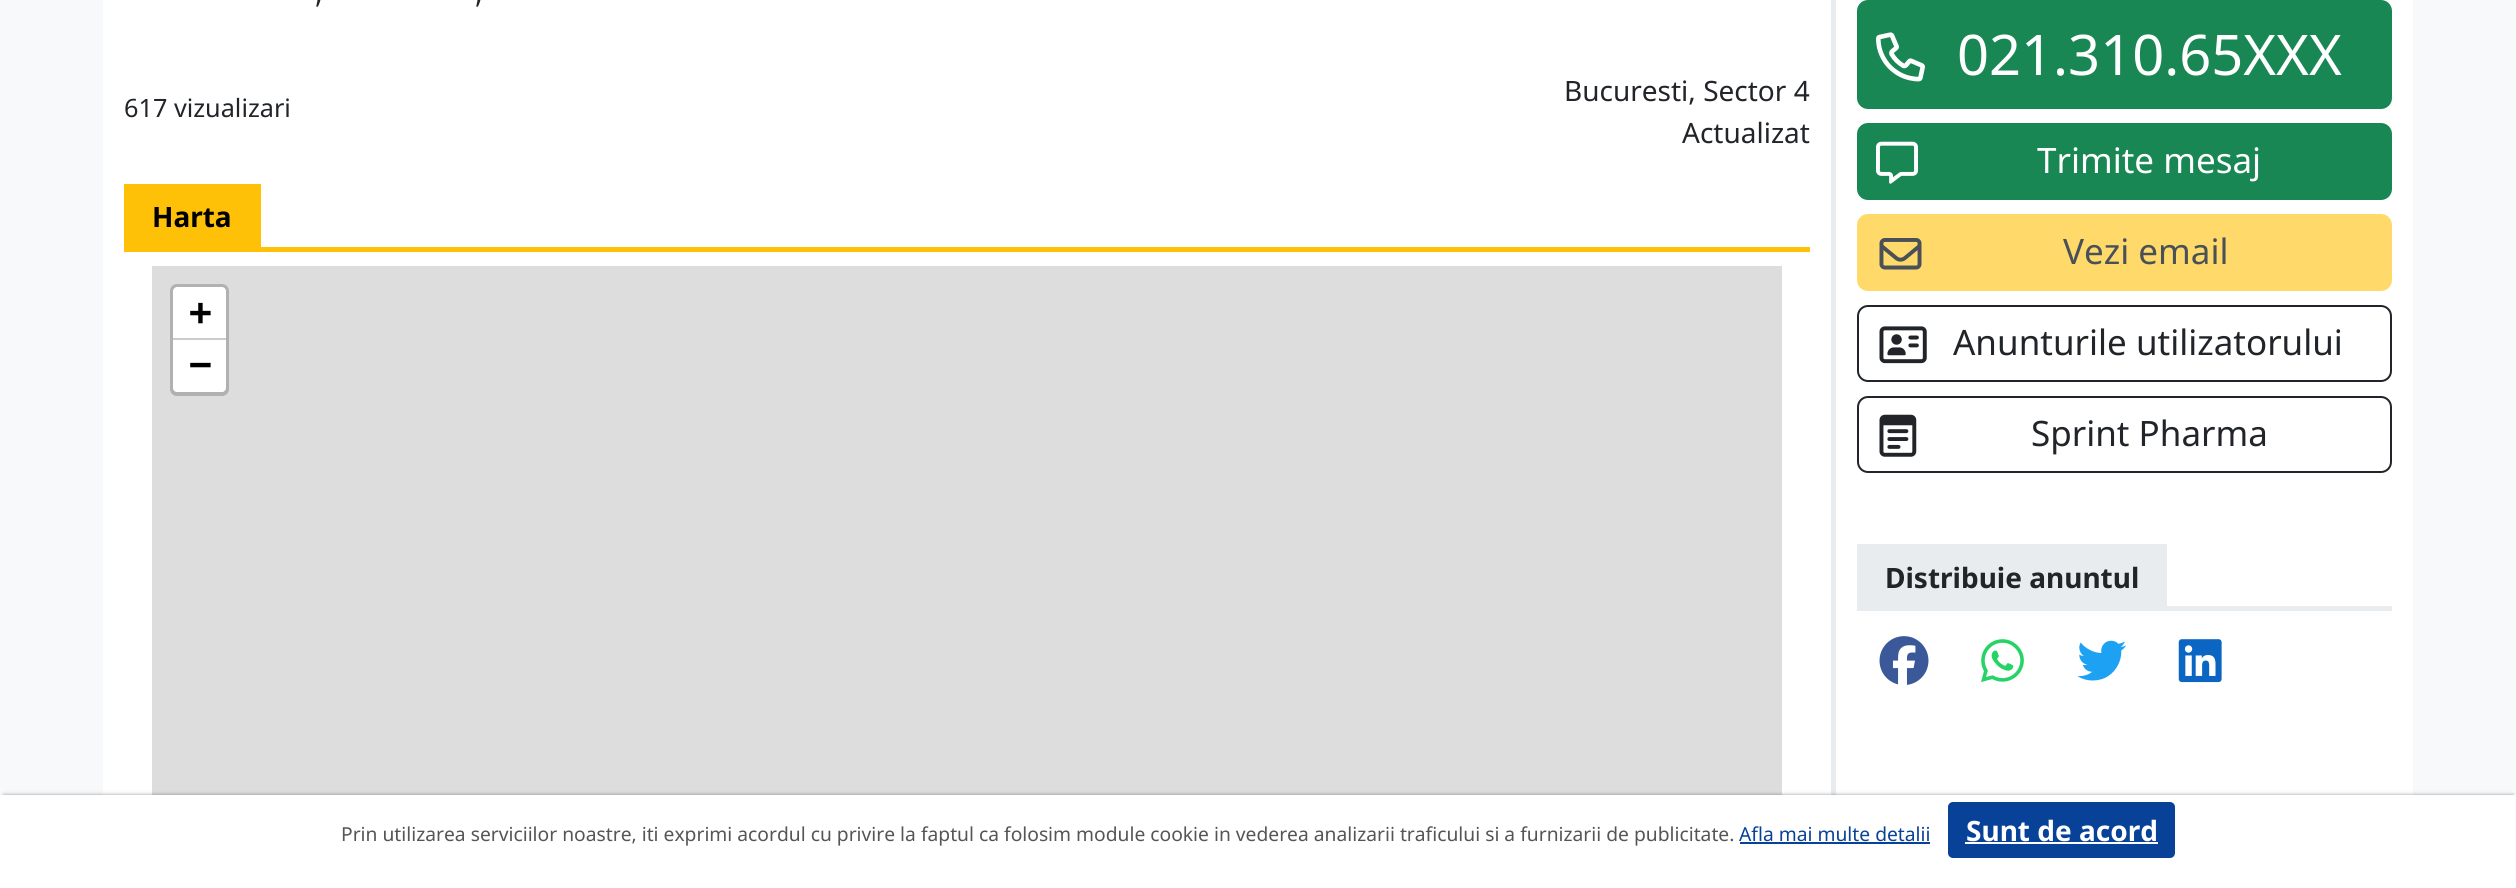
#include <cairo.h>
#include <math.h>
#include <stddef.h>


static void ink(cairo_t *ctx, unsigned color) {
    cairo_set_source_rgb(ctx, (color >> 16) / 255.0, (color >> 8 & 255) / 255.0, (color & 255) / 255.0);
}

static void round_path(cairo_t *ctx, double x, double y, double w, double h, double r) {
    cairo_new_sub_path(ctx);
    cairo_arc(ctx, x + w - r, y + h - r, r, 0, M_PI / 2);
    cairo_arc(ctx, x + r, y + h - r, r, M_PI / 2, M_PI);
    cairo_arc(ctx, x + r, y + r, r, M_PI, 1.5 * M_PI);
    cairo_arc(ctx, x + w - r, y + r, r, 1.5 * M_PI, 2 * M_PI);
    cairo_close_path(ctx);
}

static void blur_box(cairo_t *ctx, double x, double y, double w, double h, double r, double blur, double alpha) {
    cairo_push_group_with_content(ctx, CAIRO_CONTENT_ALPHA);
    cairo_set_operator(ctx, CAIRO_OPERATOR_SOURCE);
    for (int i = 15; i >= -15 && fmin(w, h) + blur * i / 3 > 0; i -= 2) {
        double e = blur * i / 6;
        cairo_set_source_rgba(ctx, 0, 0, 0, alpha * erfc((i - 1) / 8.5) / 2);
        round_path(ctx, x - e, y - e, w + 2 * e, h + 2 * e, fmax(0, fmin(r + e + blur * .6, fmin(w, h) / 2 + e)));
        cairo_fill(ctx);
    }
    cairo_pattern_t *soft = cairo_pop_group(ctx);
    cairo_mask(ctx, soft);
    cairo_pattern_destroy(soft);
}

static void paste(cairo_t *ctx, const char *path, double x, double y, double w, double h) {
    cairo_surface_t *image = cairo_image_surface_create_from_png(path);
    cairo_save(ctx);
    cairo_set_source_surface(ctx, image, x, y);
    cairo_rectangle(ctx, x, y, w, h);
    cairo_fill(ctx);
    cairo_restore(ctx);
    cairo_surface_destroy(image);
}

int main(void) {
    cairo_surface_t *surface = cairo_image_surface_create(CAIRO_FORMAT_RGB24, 2516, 888);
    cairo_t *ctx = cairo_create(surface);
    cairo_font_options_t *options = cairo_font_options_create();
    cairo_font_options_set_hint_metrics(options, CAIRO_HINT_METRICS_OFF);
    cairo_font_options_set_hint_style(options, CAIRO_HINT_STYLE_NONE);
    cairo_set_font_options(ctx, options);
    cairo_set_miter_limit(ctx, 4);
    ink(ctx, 0xF8F9FA);
    cairo_paint(ctx);
    ink(ctx, 0xFFFFFF);
    cairo_rectangle(ctx, 103, 0, 1728, 795);
    cairo_fill(ctx);
    ink(ctx, 0xE9ECEF);
    cairo_rectangle(ctx, 1831, 0, 5, 795);
    cairo_fill(ctx);
    cairo_select_font_face(ctx, "Noto Sans", CAIRO_FONT_SLANT_NORMAL, CAIRO_FONT_WEIGHT_NORMAL);
    cairo_set_font_size(ctx, 28);
    ink(ctx, 0x212529);
    cairo_move_to(ctx, 315, 3);
    cairo_show_text(ctx, ",");
    cairo_move_to(ctx, 475, 3);
    cairo_show_text(ctx, ",");
    cairo_set_font_size(ctx, 25.25);
    cairo_move_to(ctx, 124, 117);
    cairo_show_text(ctx, "617 vizualizari");
    cairo_set_font_size(ctx, 28);
    cairo_move_to(ctx, 1564, 101);
    cairo_show_text(ctx, "Bucuresti, Sector 4");
    cairo_move_to(ctx, 1682, 143);
    cairo_show_text(ctx, "Actualizat");
    ink(ctx, 0xFFC107);
    cairo_rectangle(ctx, 124, 247, 1686, 5);
    cairo_fill(ctx);
    cairo_rectangle(ctx, 124, 184, 137, 63);
    cairo_fill(ctx);
    cairo_select_font_face(ctx, "Noto Sans", CAIRO_FONT_SLANT_NORMAL, CAIRO_FONT_WEIGHT_BOLD);
    ink(ctx, 0x000000);
    cairo_move_to(ctx, 152, 227);
    cairo_show_text(ctx, "Harta");
    ink(ctx, 0xDDDDDD);
    cairo_rectangle(ctx, 152, 266, 1630, 529);
    cairo_fill(ctx);
    round_path(ctx, 172, 286, 55, 108, 5);
    ink(ctx, 0xB1B1B1);
    cairo_set_line_width(ctx, 4);
    cairo_stroke(ctx);
    ink(ctx, 0xFFFFFF);
    cairo_new_path(ctx);
    cairo_move_to(ctx, 177, 287);
    cairo_line_to(ctx, 222, 287);
    cairo_curve_to(ctx, 224, 287, 226, 289, 226, 291);
    cairo_line_to(ctx, 226, 340);
    cairo_line_to(ctx, 173, 340);
    cairo_line_to(ctx, 173, 291);
    cairo_curve_to(ctx, 173, 289, 175, 287, 177, 287);
    cairo_close_path(ctx);
    cairo_fill(ctx);
    ink(ctx, 0xCCCCCC);
    cairo_rectangle(ctx, 173, 338, 53, 2);
    cairo_fill(ctx);
    cairo_select_font_face(ctx, "DejaVu Sans Mono", CAIRO_FONT_SLANT_NORMAL, CAIRO_FONT_WEIGHT_BOLD);
    cairo_set_font_size(ctx, 38);
    ink(ctx, 0x000000);
    cairo_move_to(ctx, 189, 325);
    cairo_show_text(ctx, "+");
    ink(ctx, 0xFFFFFF);
    cairo_new_path(ctx);
    cairo_move_to(ctx, 173, 340);
    cairo_line_to(ctx, 226, 340);
    cairo_line_to(ctx, 226, 388);
    cairo_curve_to(ctx, 226, 390, 224, 392, 222, 392);
    cairo_line_to(ctx, 177, 392);
    cairo_curve_to(ctx, 175, 392, 173, 390, 173, 388);
    cairo_close_path(ctx);
    cairo_fill(ctx);
    ink(ctx, 0x000000);
    cairo_move_to(ctx, 189, 377);
    cairo_show_text(ctx, "−");
    ink(ctx, 0xFFFFFF);
    cairo_rectangle(ctx, 1836, 0, 577, 795);
    cairo_fill(ctx);
    ink(ctx, 0x198754);
    round_path(ctx, 1858, 1, 533, 107, 10);
    cairo_fill_preserve(ctx);
    cairo_set_line_width(ctx, 2);
    cairo_stroke(ctx);
    paste(ctx, "media/1.png", 1876, 32, 49, 50);
    cairo_select_font_face(ctx, "Noto Sans", CAIRO_FONT_SLANT_NORMAL, CAIRO_FONT_WEIGHT_NORMAL);
    cairo_set_font_size(ctx, 56);
    ink(ctx, 0xFFFFFF);
    cairo_move_to(ctx, 1957, 75);
    cairo_show_text(ctx, "021.310.65XXX");
    ink(ctx, 0x198754);
    round_path(ctx, 1858, 124, 533, 75, 10);
    cairo_fill_preserve(ctx);
    cairo_stroke(ctx);
    paste(ctx, "media/2.png", 1876, 141, 42, 43);
    cairo_set_font_size(ctx, 35);
    ink(ctx, 0xFFFFFF);
    cairo_move_to(ctx, 2037, 173);
    cairo_show_text(ctx, "Trimite mesaj");
    ink(ctx, 0xFFDA6A);
    round_path(ctx, 1858, 215, 533, 75, 10);
    cairo_fill_preserve(ctx);
    cairo_stroke(ctx);
    paste(ctx, "media/3.png", 1879, 238, 43, 32);
    ink(ctx, 0x495057);
    cairo_move_to(ctx, 2063, 264);
    cairo_show_text(ctx, "Vezi email");
    round_path(ctx, 1858, 306, 533, 75, 10);
    ink(ctx, 0x212529);
    cairo_stroke(ctx);
    paste(ctx, "media/4.png", 1879, 326, 48, 38);
    cairo_move_to(ctx, 1953, 355);
    cairo_show_text(ctx, "Anunturile utilizatorului");
    round_path(ctx, 1858, 397, 533, 75, 10);
    cairo_stroke(ctx);
    paste(ctx, "media/5.png", 1879, 414, 38, 43);
    cairo_move_to(ctx, 2031, 446);
    cairo_show_text(ctx, "Sprint Pharma");
    ink(ctx, 0xE9ECEF);
    cairo_rectangle(ctx, 2167, 606, 225, 5);
    cairo_fill(ctx);
    cairo_rectangle(ctx, 1857, 544, 310, 67);
    cairo_fill(ctx);
    cairo_select_font_face(ctx, "Noto Sans", CAIRO_FONT_SLANT_NORMAL, CAIRO_FONT_WEIGHT_BOLD);
    cairo_set_font_size(ctx, 28);
    ink(ctx, 0x212529);
    cairo_move_to(ctx, 1885, 588);
    cairo_show_text(ctx, "Distribuie anuntul");
    paste(ctx, "media/6.png", 1879, 636, 50, 49);
    paste(ctx, "media/7.png", 1981, 639, 43, 43);
    paste(ctx, "media/8.png", 2077, 640, 50, 41);
    paste(ctx, "media/9.png", 2178, 639, 44, 44);
    ink(ctx, 0x000000);
    blur_box(ctx, 4, 795, 2509, 87, 0, 2, 0.4);
    ink(ctx, 0xFFFFFF);
    cairo_rectangle(ctx, 0, 795, 2516, 93);
    cairo_fill(ctx);
    cairo_select_font_face(ctx, "Noto Sans", CAIRO_FONT_SLANT_NORMAL, CAIRO_FONT_WEIGHT_NORMAL);
    cairo_set_font_size(ctx, 19.25);
    ink(ctx, 0x555555);
    cairo_move_to(ctx, 341, 841);
    cairo_show_text(ctx, "Prin utilizarea serviciilor noastre, iti exprimi acordul cu privire la faptul ca folosim module cookie in vederea analizarii traficului si a furnizarii de publicitate.");
    ink(ctx, 0x084298);
    cairo_move_to(ctx, 1739, 841);
    cairo_show_text(ctx, "Afla mai multe detalii");
    cairo_rectangle(ctx, 1740, 842, 190, 2);
    cairo_fill(ctx);
    round_path(ctx, 1948, 802, 227, 56, 5);
    cairo_fill(ctx);
    cairo_select_font_face(ctx, "Noto Sans", CAIRO_FONT_SLANT_NORMAL, CAIRO_FONT_WEIGHT_BOLD);
    cairo_set_font_size(ctx, 28);
    ink(ctx, 0xFFFFFF);
    cairo_move_to(ctx, 1966, 841);
    cairo_show_text(ctx, "Sunt de acord");
    cairo_rectangle(ctx, 1965, 842, 193, 2);
    cairo_fill(ctx);
    cairo_surface_write_to_png(surface, "image.png");
    cairo_font_options_destroy(options);
    cairo_destroy(ctx);
    cairo_surface_destroy(surface);
    return 0;
}
